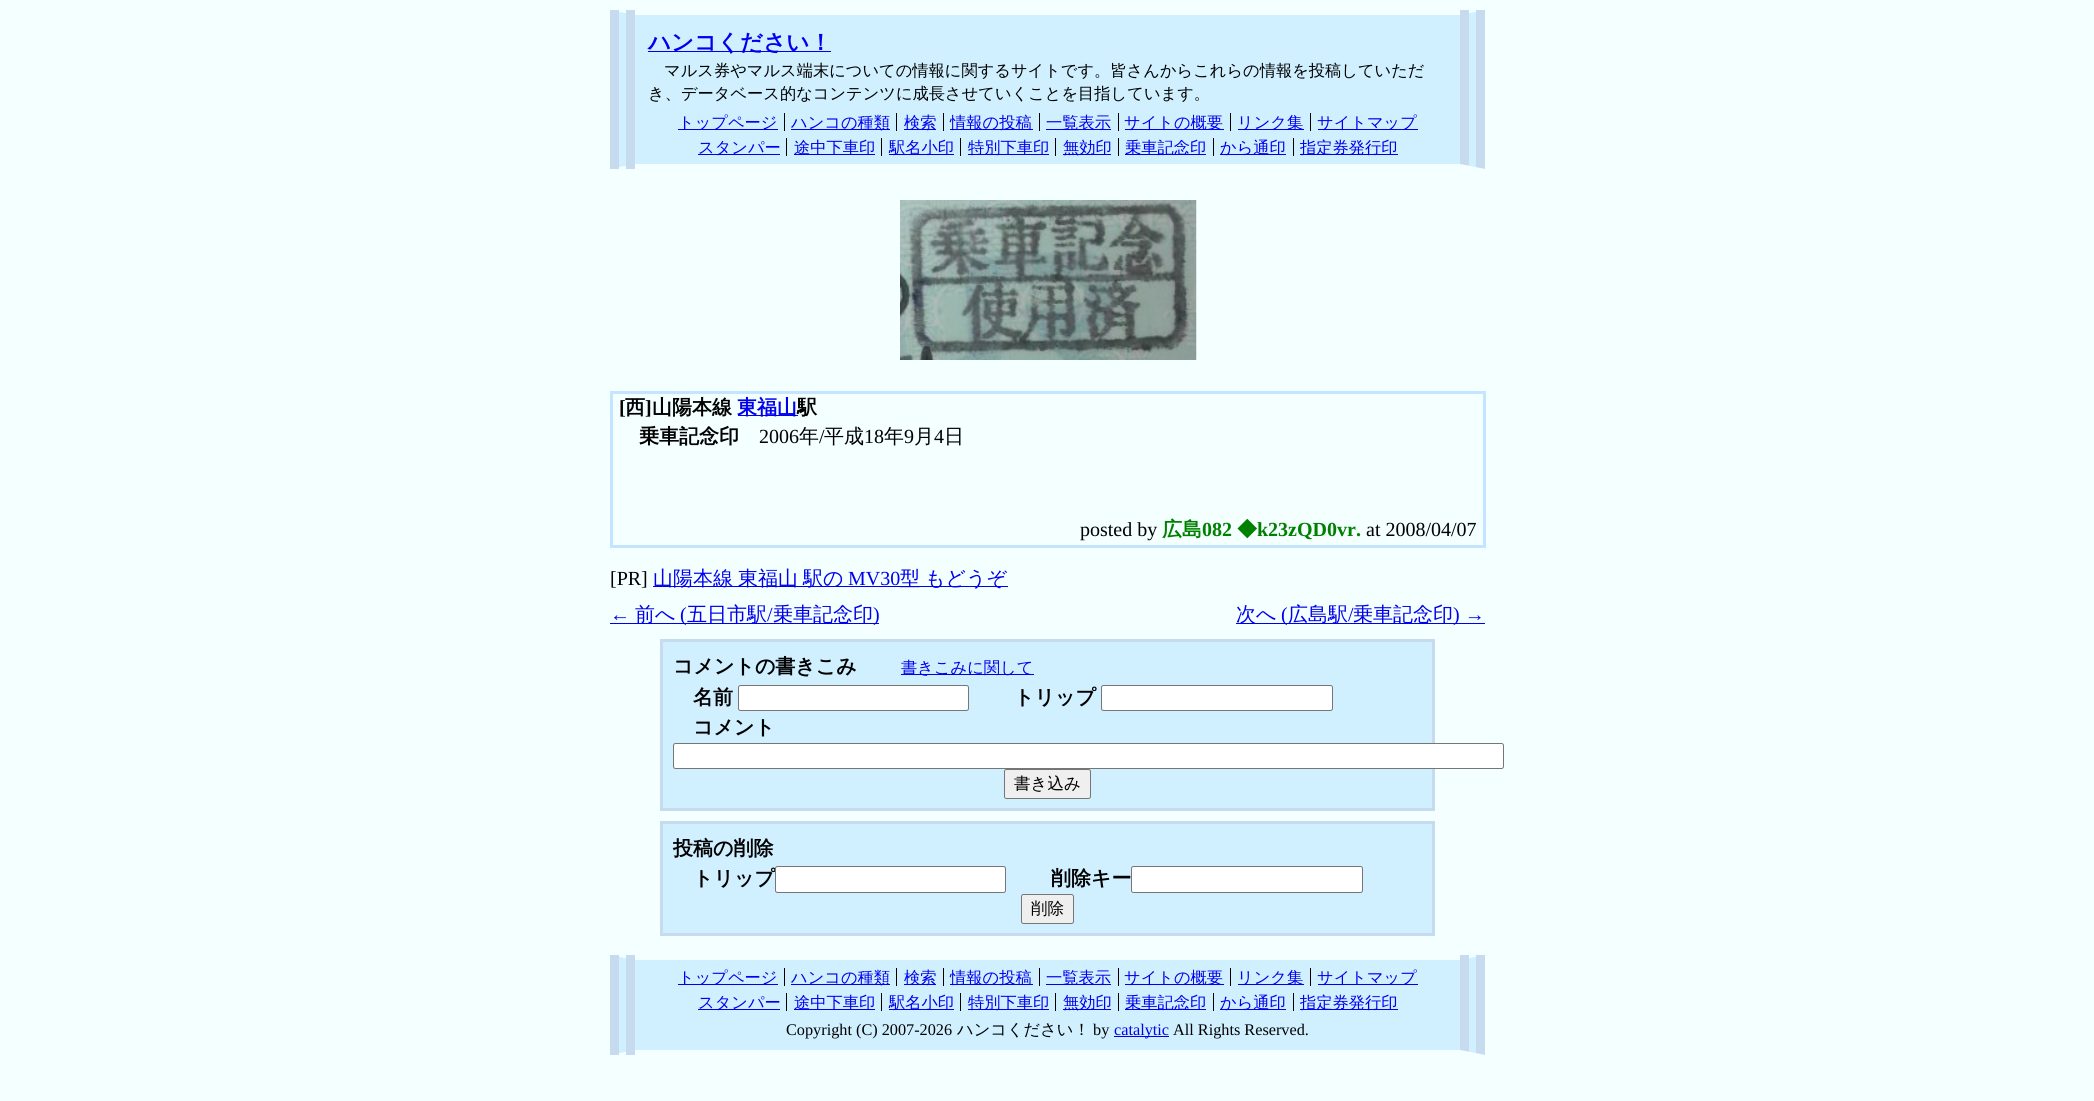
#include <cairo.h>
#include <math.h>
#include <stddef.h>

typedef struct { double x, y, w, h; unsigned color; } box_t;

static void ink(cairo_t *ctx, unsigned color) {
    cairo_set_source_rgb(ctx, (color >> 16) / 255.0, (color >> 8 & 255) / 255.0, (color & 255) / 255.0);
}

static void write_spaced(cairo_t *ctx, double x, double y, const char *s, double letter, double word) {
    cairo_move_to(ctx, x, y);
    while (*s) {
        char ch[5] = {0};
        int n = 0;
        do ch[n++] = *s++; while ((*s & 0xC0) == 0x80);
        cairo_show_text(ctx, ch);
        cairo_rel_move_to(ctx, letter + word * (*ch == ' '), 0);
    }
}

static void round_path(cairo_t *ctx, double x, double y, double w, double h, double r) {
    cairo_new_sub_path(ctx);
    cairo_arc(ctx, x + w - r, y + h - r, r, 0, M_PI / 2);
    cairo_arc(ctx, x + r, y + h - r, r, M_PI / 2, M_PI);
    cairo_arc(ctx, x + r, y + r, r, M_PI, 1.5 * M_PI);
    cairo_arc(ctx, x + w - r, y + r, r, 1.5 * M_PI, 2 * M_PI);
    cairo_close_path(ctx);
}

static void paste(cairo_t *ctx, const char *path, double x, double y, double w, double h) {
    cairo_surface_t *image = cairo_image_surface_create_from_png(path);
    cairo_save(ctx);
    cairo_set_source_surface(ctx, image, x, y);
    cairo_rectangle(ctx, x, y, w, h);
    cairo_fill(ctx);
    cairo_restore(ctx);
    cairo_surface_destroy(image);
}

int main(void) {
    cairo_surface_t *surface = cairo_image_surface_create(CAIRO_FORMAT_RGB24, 2094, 1101);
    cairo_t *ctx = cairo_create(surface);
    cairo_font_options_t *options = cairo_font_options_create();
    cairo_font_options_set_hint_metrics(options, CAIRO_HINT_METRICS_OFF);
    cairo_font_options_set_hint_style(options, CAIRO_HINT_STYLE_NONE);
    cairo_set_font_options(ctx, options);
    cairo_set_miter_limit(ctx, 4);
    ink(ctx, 0xF4FFFF);
    cairo_paint(ctx);
    ink(ctx, 0xD0F0FF);
    cairo_rectangle(ctx, 619, 11, 857, 157);
    cairo_fill(ctx);
    ink(ctx, 0xF4FFFF);
    cairo_new_path(ctx);
    cairo_move_to(ctx, 610, 10);
    cairo_line_to(ctx, 1485, 10);
    cairo_line_to(ctx, 1460, 15);
    cairo_line_to(ctx, 635, 15);
    cairo_close_path(ctx);
    cairo_fill(ctx);
    ink(ctx, 0xC7DBEF);
    cairo_rectangle(ctx, 1460, 10, 9, 156);
    cairo_fill(ctx);
    cairo_rectangle(ctx, 1476, 10, 9, 159);
    cairo_fill(ctx);
    ink(ctx, 0xF4FFFF);
    cairo_new_path(ctx);
    cairo_move_to(ctx, 1485, 169);
    cairo_line_to(ctx, 610, 169);
    cairo_line_to(ctx, 635, 164);
    cairo_line_to(ctx, 1460, 164);
    cairo_close_path(ctx);
    cairo_fill(ctx);
    {
        static const box_t items[] = {
            {610, 10, 9, 159, 0xC7DBEF},
            {626, 10, 9, 159, 0xC7DBEF},
            {648, 51, 183, 1, 0x0000EE},
        };
        for (size_t i = 0; i < sizeof items / sizeof *items; i++) {
            ink(ctx, items[i].color);
            cairo_rectangle(ctx, items[i].x, items[i].y, items[i].w, items[i].h);
            cairo_fill(ctx);
        }
    }
    cairo_select_font_face(ctx, "WenQuanYi Zen Hei", CAIRO_FONT_SLANT_NORMAL, CAIRO_FONT_WEIGHT_BOLD);
    cairo_set_font_size(ctx, 22.5);
    cairo_move_to(ctx, 648, 50);
    cairo_show_text(ctx, "ハンコください！");
    cairo_select_font_face(ctx, "WenQuanYi Zen Hei Medium", CAIRO_FONT_SLANT_NORMAL, CAIRO_FONT_WEIGHT_NORMAL);
    cairo_set_font_size(ctx, 16.25);
    ink(ctx, 0x000000);
    cairo_move_to(ctx, 664, 76);
    cairo_show_text(ctx, "マルス券やマルス端末についての情報に関するサイトです。皆さんからこれらの情報を投稿していただ");
    cairo_move_to(ctx, 648, 99);
    cairo_show_text(ctx, "き、データベース的なコンテンツに成長させていくことを目指しています。");
    ink(ctx, 0x0000EE);
    cairo_rectangle(ctx, 678, 129, 100, 1);
    cairo_fill(ctx);
    cairo_move_to(ctx, 678, 128);
    cairo_show_text(ctx, "トップページ");
    ink(ctx, 0x000000);
    cairo_rectangle(ctx, 784, 113, 1, 18);
    cairo_fill(ctx);
    ink(ctx, 0x0000EE);
    cairo_rectangle(ctx, 791, 129, 99, 1);
    cairo_fill(ctx);
    cairo_move_to(ctx, 791, 128);
    cairo_show_text(ctx, "ハンコの種類");
    ink(ctx, 0x000000);
    cairo_rectangle(ctx, 896, 113, 1, 18);
    cairo_fill(ctx);
    ink(ctx, 0x0000EE);
    cairo_rectangle(ctx, 904, 129, 32, 1);
    cairo_fill(ctx);
    cairo_move_to(ctx, 904, 128);
    cairo_show_text(ctx, "検索");
    ink(ctx, 0x000000);
    cairo_rectangle(ctx, 943, 113, 1, 18);
    cairo_fill(ctx);
    ink(ctx, 0x0000EE);
    cairo_rectangle(ctx, 950, 129, 83, 1);
    cairo_fill(ctx);
    cairo_move_to(ctx, 950, 128);
    cairo_show_text(ctx, "情報の投稿");
    ink(ctx, 0x000000);
    cairo_rectangle(ctx, 1039, 113, 1, 18);
    cairo_fill(ctx);
    ink(ctx, 0x0000EE);
    cairo_rectangle(ctx, 1046, 129, 65, 1);
    cairo_fill(ctx);
    cairo_move_to(ctx, 1046, 128);
    cairo_show_text(ctx, "一覧表示");
    ink(ctx, 0x000000);
    cairo_rectangle(ctx, 1118, 113, 1, 18);
    cairo_fill(ctx);
    ink(ctx, 0x0000EE);
    cairo_rectangle(ctx, 1125, 129, 99, 1);
    cairo_fill(ctx);
    cairo_move_to(ctx, 1124, 128);
    cairo_show_text(ctx, "サイトの概要");
    ink(ctx, 0x000000);
    cairo_rectangle(ctx, 1230, 113, 1, 18);
    cairo_fill(ctx);
    ink(ctx, 0x0000EE);
    cairo_rectangle(ctx, 1238, 129, 66, 1);
    cairo_fill(ctx);
    cairo_move_to(ctx, 1237, 128);
    cairo_show_text(ctx, "リンク集");
    ink(ctx, 0x000000);
    cairo_rectangle(ctx, 1310, 113, 1, 18);
    cairo_fill(ctx);
    ink(ctx, 0x0000EE);
    cairo_rectangle(ctx, 1318, 129, 100, 1);
    cairo_fill(ctx);
    cairo_move_to(ctx, 1317, 128);
    cairo_show_text(ctx, "サイトマップ");
    cairo_rectangle(ctx, 698, 154, 82, 1);
    cairo_fill(ctx);
    cairo_move_to(ctx, 698, 153);
    cairo_show_text(ctx, "スタンパー");
    ink(ctx, 0x000000);
    cairo_rectangle(ctx, 786, 138, 1, 18);
    cairo_fill(ctx);
    ink(ctx, 0x0000EE);
    cairo_rectangle(ctx, 794, 154, 81, 1);
    cairo_fill(ctx);
    cairo_move_to(ctx, 794, 153);
    cairo_show_text(ctx, "途中下車印");
    ink(ctx, 0x000000);
    cairo_rectangle(ctx, 881, 138, 1, 18);
    cairo_fill(ctx);
    ink(ctx, 0x0000EE);
    cairo_rectangle(ctx, 889, 154, 65, 1);
    cairo_fill(ctx);
    cairo_move_to(ctx, 889, 153);
    cairo_show_text(ctx, "駅名小印");
    ink(ctx, 0x000000);
    cairo_rectangle(ctx, 960, 138, 1, 18);
    cairo_fill(ctx);
    ink(ctx, 0x0000EE);
    cairo_rectangle(ctx, 968, 154, 81, 1);
    cairo_fill(ctx);
    cairo_move_to(ctx, 968, 153);
    cairo_show_text(ctx, "特別下車印");
    ink(ctx, 0x000000);
    cairo_rectangle(ctx, 1055, 138, 1, 18);
    cairo_fill(ctx);
    ink(ctx, 0x0000EE);
    cairo_rectangle(ctx, 1063, 154, 48, 1);
    cairo_fill(ctx);
    cairo_move_to(ctx, 1063, 153);
    cairo_show_text(ctx, "無効印");
    ink(ctx, 0x000000);
    cairo_rectangle(ctx, 1118, 138, 1, 18);
    cairo_fill(ctx);
    ink(ctx, 0x0000EE);
    cairo_rectangle(ctx, 1125, 154, 81, 1);
    cairo_fill(ctx);
    cairo_move_to(ctx, 1125, 153);
    cairo_show_text(ctx, "乗車記念印");
    ink(ctx, 0x000000);
    cairo_rectangle(ctx, 1213, 138, 1, 18);
    cairo_fill(ctx);
    ink(ctx, 0x0000EE);
    cairo_rectangle(ctx, 1220, 154, 66, 1);
    cairo_fill(ctx);
    cairo_move_to(ctx, 1220, 153);
    cairo_show_text(ctx, "から通印");
    ink(ctx, 0x000000);
    cairo_rectangle(ctx, 1293, 138, 1, 18);
    cairo_fill(ctx);
    ink(ctx, 0x0000EE);
    cairo_rectangle(ctx, 1300, 154, 98, 1);
    cairo_fill(ctx);
    cairo_move_to(ctx, 1300, 153);
    cairo_show_text(ctx, "指定券発行印");
    paste(ctx, "media/1.png", 900, 200, 297, 160);
    {
        static const box_t items[] = {
            {610, 391, 875, 3, 0xC5E4FF},
            {1483, 391, 3, 157, 0xC5E4FF},
            {610, 545, 875, 3, 0xC5E4FF},
            {610, 391, 3, 157, 0xC5E4FF},
        };
        for (size_t i = 0; i < sizeof items / sizeof *items; i++) {
            ink(ctx, items[i].color);
            cairo_rectangle(ctx, items[i].x, items[i].y, items[i].w, items[i].h);
            cairo_fill(ctx);
        }
    }
    cairo_select_font_face(ctx, "Liberation Serif", CAIRO_FONT_SLANT_NORMAL, CAIRO_FONT_WEIGHT_BOLD);
    cairo_set_font_size(ctx, 20);
    ink(ctx, 0x000000);
    cairo_move_to(ctx, 619, 414);
    cairo_show_text(ctx, "[");
    cairo_select_font_face(ctx, "WenQuanYi Zen Hei", CAIRO_FONT_SLANT_NORMAL, CAIRO_FONT_WEIGHT_BOLD);
    cairo_move_to(ctx, 625, 414);
    cairo_show_text(ctx, "西");
    cairo_select_font_face(ctx, "Liberation Serif", CAIRO_FONT_SLANT_NORMAL, CAIRO_FONT_WEIGHT_BOLD);
    cairo_move_to(ctx, 645, 414);
    cairo_show_text(ctx, "]");
    cairo_select_font_face(ctx, "WenQuanYi Zen Hei", CAIRO_FONT_SLANT_NORMAL, CAIRO_FONT_WEIGHT_BOLD);
    cairo_move_to(ctx, 652, 414);
    cairo_show_text(ctx, "山陽本線");
    ink(ctx, 0x0000EE);
    cairo_rectangle(ctx, 738, 415, 60, 1);
    cairo_fill(ctx);
    cairo_move_to(ctx, 737, 414);
    cairo_show_text(ctx, "東福山");
    ink(ctx, 0x000000);
    cairo_move_to(ctx, 797, 414);
    cairo_show_text(ctx, "駅");
    cairo_move_to(ctx, 639, 443);
    cairo_show_text(ctx, "乗車記念印");
    cairo_select_font_face(ctx, "Liberation Serif", CAIRO_FONT_SLANT_NORMAL, CAIRO_FONT_WEIGHT_NORMAL);
    cairo_move_to(ctx, 759, 443);
    cairo_show_text(ctx, "2006");
    cairo_select_font_face(ctx, "WenQuanYi Zen Hei Medium", CAIRO_FONT_SLANT_NORMAL, CAIRO_FONT_WEIGHT_NORMAL);
    cairo_move_to(ctx, 799, 443);
    cairo_show_text(ctx, "年");
    cairo_select_font_face(ctx, "Liberation Serif", CAIRO_FONT_SLANT_NORMAL, CAIRO_FONT_WEIGHT_NORMAL);
    cairo_move_to(ctx, 819, 443);
    cairo_show_text(ctx, "/");
    cairo_select_font_face(ctx, "WenQuanYi Zen Hei Medium", CAIRO_FONT_SLANT_NORMAL, CAIRO_FONT_WEIGHT_NORMAL);
    cairo_move_to(ctx, 824, 443);
    cairo_show_text(ctx, "平成");
    cairo_select_font_face(ctx, "Liberation Serif", CAIRO_FONT_SLANT_NORMAL, CAIRO_FONT_WEIGHT_NORMAL);
    cairo_move_to(ctx, 864, 443);
    cairo_show_text(ctx, "18");
    cairo_select_font_face(ctx, "WenQuanYi Zen Hei Medium", CAIRO_FONT_SLANT_NORMAL, CAIRO_FONT_WEIGHT_NORMAL);
    cairo_move_to(ctx, 884, 443);
    cairo_show_text(ctx, "年");
    cairo_select_font_face(ctx, "Liberation Serif", CAIRO_FONT_SLANT_NORMAL, CAIRO_FONT_WEIGHT_NORMAL);
    cairo_move_to(ctx, 904, 443);
    cairo_show_text(ctx, "9");
    cairo_select_font_face(ctx, "WenQuanYi Zen Hei Medium", CAIRO_FONT_SLANT_NORMAL, CAIRO_FONT_WEIGHT_NORMAL);
    cairo_move_to(ctx, 914, 443);
    cairo_show_text(ctx, "月");
    cairo_select_font_face(ctx, "Liberation Serif", CAIRO_FONT_SLANT_NORMAL, CAIRO_FONT_WEIGHT_NORMAL);
    cairo_move_to(ctx, 934, 443);
    cairo_show_text(ctx, "4");
    cairo_select_font_face(ctx, "WenQuanYi Zen Hei Medium", CAIRO_FONT_SLANT_NORMAL, CAIRO_FONT_WEIGHT_NORMAL);
    cairo_move_to(ctx, 944, 443);
    cairo_show_text(ctx, "日");
    cairo_select_font_face(ctx, "Liberation Serif", CAIRO_FONT_SLANT_NORMAL, CAIRO_FONT_WEIGHT_NORMAL);
    cairo_move_to(ctx, 1080, 536);
    cairo_show_text(ctx, "posted by");
    cairo_select_font_face(ctx, "WenQuanYi Zen Hei", CAIRO_FONT_SLANT_NORMAL, CAIRO_FONT_WEIGHT_BOLD);
    ink(ctx, 0x008000);
    cairo_move_to(ctx, 1162, 536);
    cairo_show_text(ctx, "広島");
    cairo_select_font_face(ctx, "Liberation Serif", CAIRO_FONT_SLANT_NORMAL, CAIRO_FONT_WEIGHT_BOLD);
    cairo_move_to(ctx, 1202, 536);
    cairo_show_text(ctx, "082");
    cairo_select_font_face(ctx, "WenQuanYi Zen Hei", CAIRO_FONT_SLANT_NORMAL, CAIRO_FONT_WEIGHT_BOLD);
    cairo_move_to(ctx, 1237, 536);
    cairo_show_text(ctx, "◆");
    cairo_select_font_face(ctx, "Liberation Serif", CAIRO_FONT_SLANT_NORMAL, CAIRO_FONT_WEIGHT_BOLD);
    cairo_move_to(ctx, 1257, 536);
    cairo_show_text(ctx, "k23zQD0vr.");
    cairo_select_font_face(ctx, "Liberation Serif", CAIRO_FONT_SLANT_NORMAL, CAIRO_FONT_WEIGHT_NORMAL);
    ink(ctx, 0x000000);
    cairo_move_to(ctx, 1366, 536);
    cairo_show_text(ctx, "at 2008/04/07");
    cairo_move_to(ctx, 610, 585);
    cairo_show_text(ctx, "[PR]");
    ink(ctx, 0x0000EE);
    cairo_rectangle(ctx, 653, 586, 355, 1);
    cairo_fill(ctx);
    cairo_select_font_face(ctx, "WenQuanYi Zen Hei Medium", CAIRO_FONT_SLANT_NORMAL, CAIRO_FONT_WEIGHT_NORMAL);
    write_spaced(ctx, 653, 585, "山陽本線 東福山 駅の", 0, -1);
    cairo_select_font_face(ctx, "Liberation Serif", CAIRO_FONT_SLANT_NORMAL, CAIRO_FONT_WEIGHT_NORMAL);
    cairo_move_to(ctx, 848, 585);
    cairo_show_text(ctx, "MV30");
    cairo_select_font_face(ctx, "WenQuanYi Zen Hei Medium", CAIRO_FONT_SLANT_NORMAL, CAIRO_FONT_WEIGHT_NORMAL);
    write_spaced(ctx, 900, 585, "型 もどうぞ", 0, -1);
    cairo_select_font_face(ctx, "Liberation Serif", CAIRO_FONT_SLANT_NORMAL, CAIRO_FONT_WEIGHT_NORMAL);
    cairo_move_to(ctx, 610, 621);
    cairo_show_text(ctx, "←");
    cairo_rectangle(ctx, 610, 623, 269, 1);
    cairo_fill(ctx);
    cairo_select_font_face(ctx, "WenQuanYi Zen Hei Medium", CAIRO_FONT_SLANT_NORMAL, CAIRO_FONT_WEIGHT_NORMAL);
    cairo_move_to(ctx, 635, 621);
    cairo_show_text(ctx, "前へ");
    cairo_select_font_face(ctx, "Liberation Serif", CAIRO_FONT_SLANT_NORMAL, CAIRO_FONT_WEIGHT_NORMAL);
    cairo_move_to(ctx, 680, 621);
    cairo_show_text(ctx, "(");
    cairo_select_font_face(ctx, "WenQuanYi Zen Hei Medium", CAIRO_FONT_SLANT_NORMAL, CAIRO_FONT_WEIGHT_NORMAL);
    cairo_move_to(ctx, 687, 621);
    cairo_show_text(ctx, "五日市駅");
    cairo_select_font_face(ctx, "Liberation Serif", CAIRO_FONT_SLANT_NORMAL, CAIRO_FONT_WEIGHT_NORMAL);
    cairo_move_to(ctx, 767, 621);
    cairo_show_text(ctx, "/");
    cairo_select_font_face(ctx, "WenQuanYi Zen Hei Medium", CAIRO_FONT_SLANT_NORMAL, CAIRO_FONT_WEIGHT_NORMAL);
    cairo_move_to(ctx, 773, 621);
    cairo_show_text(ctx, "乗車記念印");
    cairo_select_font_face(ctx, "Liberation Serif", CAIRO_FONT_SLANT_NORMAL, CAIRO_FONT_WEIGHT_NORMAL);
    cairo_move_to(ctx, 873, 621);
    cairo_show_text(ctx, ")");
    cairo_rectangle(ctx, 1236, 623, 249, 1);
    cairo_fill(ctx);
    cairo_select_font_face(ctx, "WenQuanYi Zen Hei Medium", CAIRO_FONT_SLANT_NORMAL, CAIRO_FONT_WEIGHT_NORMAL);
    cairo_move_to(ctx, 1236, 621);
    cairo_show_text(ctx, "次へ");
    cairo_select_font_face(ctx, "Liberation Serif", CAIRO_FONT_SLANT_NORMAL, CAIRO_FONT_WEIGHT_NORMAL);
    cairo_move_to(ctx, 1281, 621);
    cairo_show_text(ctx, "(");
    cairo_select_font_face(ctx, "WenQuanYi Zen Hei Medium", CAIRO_FONT_SLANT_NORMAL, CAIRO_FONT_WEIGHT_NORMAL);
    cairo_move_to(ctx, 1288, 621);
    cairo_show_text(ctx, "広島駅");
    cairo_select_font_face(ctx, "Liberation Serif", CAIRO_FONT_SLANT_NORMAL, CAIRO_FONT_WEIGHT_NORMAL);
    cairo_move_to(ctx, 1348, 621);
    cairo_show_text(ctx, "/");
    cairo_select_font_face(ctx, "WenQuanYi Zen Hei Medium", CAIRO_FONT_SLANT_NORMAL, CAIRO_FONT_WEIGHT_NORMAL);
    cairo_move_to(ctx, 1353, 621);
    cairo_show_text(ctx, "乗車記念印");
    cairo_select_font_face(ctx, "Liberation Serif", CAIRO_FONT_SLANT_NORMAL, CAIRO_FONT_WEIGHT_NORMAL);
    cairo_move_to(ctx, 1453, 621);
    cairo_show_text(ctx, ") →");
    ink(ctx, 0xD0F0FF);
    cairo_rectangle(ctx, 661.5, 640.5, 772, 169);
    cairo_fill_preserve(ctx);
    ink(ctx, 0xC7DBEF);
    cairo_set_line_width(ctx, 3);
    cairo_stroke(ctx);
    cairo_select_font_face(ctx, "WenQuanYi Zen Hei", CAIRO_FONT_SLANT_NORMAL, CAIRO_FONT_WEIGHT_BOLD);
    ink(ctx, 0x000000);
    cairo_move_to(ctx, 673, 673);
    cairo_show_text(ctx, "コメントの書きこみ");
    ink(ctx, 0x0000EE);
    cairo_rectangle(ctx, 901, 674, 133, 1);
    cairo_fill(ctx);
    cairo_select_font_face(ctx, "WenQuanYi Zen Hei Medium", CAIRO_FONT_SLANT_NORMAL, CAIRO_FONT_WEIGHT_NORMAL);
    cairo_set_font_size(ctx, 16.25);
    cairo_move_to(ctx, 901, 673);
    cairo_show_text(ctx, "書きこみに関して");
    cairo_select_font_face(ctx, "WenQuanYi Zen Hei", CAIRO_FONT_SLANT_NORMAL, CAIRO_FONT_WEIGHT_BOLD);
    cairo_set_font_size(ctx, 20);
    ink(ctx, 0x000000);
    cairo_move_to(ctx, 693, 704);
    cairo_show_text(ctx, "名前");
    ink(ctx, 0xFFFFFF);
    round_path(ctx, 738.5, 685.5, 230, 25, 2);
    cairo_fill_preserve(ctx);
    ink(ctx, 0x767676);
    cairo_set_line_width(ctx, 1);
    cairo_stroke(ctx);
    ink(ctx, 0x000000);
    cairo_move_to(ctx, 1014, 704);
    cairo_show_text(ctx, "トリップ");
    ink(ctx, 0xFFFFFF);
    round_path(ctx, 1101.5, 685.5, 231, 25, 2);
    cairo_fill_preserve(ctx);
    ink(ctx, 0x767676);
    cairo_stroke(ctx);
    ink(ctx, 0x000000);
    cairo_move_to(ctx, 693, 734);
    cairo_show_text(ctx, "コメント");
    ink(ctx, 0xFFFFFF);
    round_path(ctx, 673.5, 743.5, 830, 25, 2);
    cairo_fill_preserve(ctx);
    ink(ctx, 0x767676);
    cairo_stroke(ctx);
    ink(ctx, 0xEFEFEF);
    round_path(ctx, 1004.5, 769.5, 86, 29, 2);
    cairo_fill_preserve(ctx);
    ink(ctx, 0x767676);
    cairo_stroke(ctx);
    cairo_select_font_face(ctx, "WenQuanYi Zen Hei Medium", CAIRO_FONT_SLANT_NORMAL, CAIRO_FONT_WEIGHT_NORMAL);
    cairo_set_font_size(ctx, 16.5);
    ink(ctx, 0x000000);
    cairo_move_to(ctx, 1014, 789);
    cairo_show_text(ctx, "書き込み");
    ink(ctx, 0xD0F0FF);
    cairo_rectangle(ctx, 661.5, 822.5, 772, 112);
    cairo_fill_preserve(ctx);
    ink(ctx, 0xC7DBEF);
    cairo_set_line_width(ctx, 3);
    cairo_stroke(ctx);
    cairo_select_font_face(ctx, "WenQuanYi Zen Hei", CAIRO_FONT_SLANT_NORMAL, CAIRO_FONT_WEIGHT_BOLD);
    cairo_set_font_size(ctx, 20);
    ink(ctx, 0x000000);
    cairo_move_to(ctx, 673, 855);
    cairo_show_text(ctx, "投稿の削除");
    cairo_move_to(ctx, 693, 885);
    cairo_show_text(ctx, "トリップ");
    ink(ctx, 0xFFFFFF);
    round_path(ctx, 775.5, 866.5, 230, 26, 2);
    cairo_fill_preserve(ctx);
    ink(ctx, 0x767676);
    cairo_set_line_width(ctx, 1);
    cairo_stroke(ctx);
    ink(ctx, 0x000000);
    cairo_move_to(ctx, 1051, 885);
    cairo_show_text(ctx, "削除キー");
    ink(ctx, 0xFFFFFF);
    round_path(ctx, 1131.5, 866.5, 231, 26, 2);
    cairo_fill_preserve(ctx);
    ink(ctx, 0x767676);
    cairo_stroke(ctx);
    ink(ctx, 0xEFEFEF);
    round_path(ctx, 1021.5, 894.5, 52, 29, 2);
    cairo_fill_preserve(ctx);
    ink(ctx, 0x767676);
    cairo_stroke(ctx);
    cairo_select_font_face(ctx, "WenQuanYi Zen Hei Medium", CAIRO_FONT_SLANT_NORMAL, CAIRO_FONT_WEIGHT_NORMAL);
    cairo_set_font_size(ctx, 16.5);
    ink(ctx, 0x000000);
    cairo_move_to(ctx, 1031, 914);
    cairo_show_text(ctx, "削除");
    ink(ctx, 0xD0F0FF);
    cairo_rectangle(ctx, 619, 956, 857, 98);
    cairo_fill(ctx);
    ink(ctx, 0xF4FFFF);
    cairo_new_path(ctx);
    cairo_move_to(ctx, 610, 955);
    cairo_line_to(ctx, 1485, 955);
    cairo_line_to(ctx, 1460, 960);
    cairo_line_to(ctx, 635, 960);
    cairo_close_path(ctx);
    cairo_fill(ctx);
    ink(ctx, 0xC7DBEF);
    cairo_rectangle(ctx, 1460, 955, 9, 97);
    cairo_fill(ctx);
    cairo_rectangle(ctx, 1476, 955, 9, 100);
    cairo_fill(ctx);
    ink(ctx, 0xF4FFFF);
    cairo_new_path(ctx);
    cairo_move_to(ctx, 1485, 1055);
    cairo_line_to(ctx, 610, 1055);
    cairo_line_to(ctx, 635, 1050);
    cairo_line_to(ctx, 1460, 1050);
    cairo_close_path(ctx);
    cairo_fill(ctx);
    {
        static const box_t items[] = {
            {610, 955, 9, 100, 0xC7DBEF},
            {626, 955, 9, 100, 0xC7DBEF},
            {678, 984, 100, 1, 0x0000EE},
        };
        for (size_t i = 0; i < sizeof items / sizeof *items; i++) {
            ink(ctx, items[i].color);
            cairo_rectangle(ctx, items[i].x, items[i].y, items[i].w, items[i].h);
            cairo_fill(ctx);
        }
    }
    cairo_set_font_size(ctx, 16.25);
    cairo_move_to(ctx, 678, 983);
    cairo_show_text(ctx, "トップページ");
    ink(ctx, 0x000000);
    cairo_rectangle(ctx, 784, 968, 1, 18);
    cairo_fill(ctx);
    ink(ctx, 0x0000EE);
    cairo_rectangle(ctx, 791, 984, 99, 1);
    cairo_fill(ctx);
    cairo_move_to(ctx, 791, 983);
    cairo_show_text(ctx, "ハンコの種類");
    ink(ctx, 0x000000);
    cairo_rectangle(ctx, 896, 968, 1, 18);
    cairo_fill(ctx);
    ink(ctx, 0x0000EE);
    cairo_rectangle(ctx, 904, 984, 32, 1);
    cairo_fill(ctx);
    cairo_move_to(ctx, 904, 983);
    cairo_show_text(ctx, "検索");
    ink(ctx, 0x000000);
    cairo_rectangle(ctx, 943, 968, 1, 18);
    cairo_fill(ctx);
    ink(ctx, 0x0000EE);
    cairo_rectangle(ctx, 950, 984, 83, 1);
    cairo_fill(ctx);
    cairo_move_to(ctx, 950, 983);
    cairo_show_text(ctx, "情報の投稿");
    ink(ctx, 0x000000);
    cairo_rectangle(ctx, 1039, 968, 1, 18);
    cairo_fill(ctx);
    ink(ctx, 0x0000EE);
    cairo_rectangle(ctx, 1046, 984, 65, 1);
    cairo_fill(ctx);
    cairo_move_to(ctx, 1046, 983);
    cairo_show_text(ctx, "一覧表示");
    ink(ctx, 0x000000);
    cairo_rectangle(ctx, 1118, 968, 1, 18);
    cairo_fill(ctx);
    ink(ctx, 0x0000EE);
    cairo_rectangle(ctx, 1125, 984, 99, 1);
    cairo_fill(ctx);
    cairo_move_to(ctx, 1124, 983);
    cairo_show_text(ctx, "サイトの概要");
    ink(ctx, 0x000000);
    cairo_rectangle(ctx, 1230, 968, 1, 18);
    cairo_fill(ctx);
    ink(ctx, 0x0000EE);
    cairo_rectangle(ctx, 1238, 984, 66, 1);
    cairo_fill(ctx);
    cairo_move_to(ctx, 1237, 983);
    cairo_show_text(ctx, "リンク集");
    ink(ctx, 0x000000);
    cairo_rectangle(ctx, 1310, 968, 1, 18);
    cairo_fill(ctx);
    ink(ctx, 0x0000EE);
    cairo_rectangle(ctx, 1318, 984, 100, 1);
    cairo_fill(ctx);
    cairo_move_to(ctx, 1317, 983);
    cairo_show_text(ctx, "サイトマップ");
    cairo_rectangle(ctx, 698, 1009, 82, 1);
    cairo_fill(ctx);
    cairo_move_to(ctx, 698, 1008);
    cairo_show_text(ctx, "スタンパー");
    ink(ctx, 0x000000);
    cairo_rectangle(ctx, 786, 993, 1, 18);
    cairo_fill(ctx);
    ink(ctx, 0x0000EE);
    cairo_rectangle(ctx, 794, 1009, 81, 1);
    cairo_fill(ctx);
    cairo_move_to(ctx, 794, 1008);
    cairo_show_text(ctx, "途中下車印");
    ink(ctx, 0x000000);
    cairo_rectangle(ctx, 881, 993, 1, 18);
    cairo_fill(ctx);
    ink(ctx, 0x0000EE);
    cairo_rectangle(ctx, 889, 1009, 65, 1);
    cairo_fill(ctx);
    cairo_move_to(ctx, 889, 1008);
    cairo_show_text(ctx, "駅名小印");
    ink(ctx, 0x000000);
    cairo_rectangle(ctx, 960, 993, 1, 18);
    cairo_fill(ctx);
    ink(ctx, 0x0000EE);
    cairo_rectangle(ctx, 968, 1009, 81, 1);
    cairo_fill(ctx);
    cairo_move_to(ctx, 968, 1008);
    cairo_show_text(ctx, "特別下車印");
    ink(ctx, 0x000000);
    cairo_rectangle(ctx, 1055, 993, 1, 18);
    cairo_fill(ctx);
    ink(ctx, 0x0000EE);
    cairo_rectangle(ctx, 1063, 1009, 48, 1);
    cairo_fill(ctx);
    cairo_move_to(ctx, 1063, 1008);
    cairo_show_text(ctx, "無効印");
    ink(ctx, 0x000000);
    cairo_rectangle(ctx, 1118, 993, 1, 18);
    cairo_fill(ctx);
    ink(ctx, 0x0000EE);
    cairo_rectangle(ctx, 1125, 1009, 81, 1);
    cairo_fill(ctx);
    cairo_move_to(ctx, 1125, 1008);
    cairo_show_text(ctx, "乗車記念印");
    ink(ctx, 0x000000);
    cairo_rectangle(ctx, 1213, 993, 1, 18);
    cairo_fill(ctx);
    ink(ctx, 0x0000EE);
    cairo_rectangle(ctx, 1220, 1009, 66, 1);
    cairo_fill(ctx);
    cairo_move_to(ctx, 1220, 1008);
    cairo_show_text(ctx, "から通印");
    ink(ctx, 0x000000);
    cairo_rectangle(ctx, 1293, 993, 1, 18);
    cairo_fill(ctx);
    ink(ctx, 0x0000EE);
    cairo_rectangle(ctx, 1300, 1009, 98, 1);
    cairo_fill(ctx);
    cairo_move_to(ctx, 1300, 1008);
    cairo_show_text(ctx, "指定券発行印");
    cairo_select_font_face(ctx, "Liberation Serif", CAIRO_FONT_SLANT_NORMAL, CAIRO_FONT_WEIGHT_NORMAL);
    ink(ctx, 0x000000);
    cairo_move_to(ctx, 786, 1035);
    cairo_show_text(ctx, "Copyright (C) 2007-2026");
    cairo_select_font_face(ctx, "WenQuanYi Zen Hei Medium", CAIRO_FONT_SLANT_NORMAL, CAIRO_FONT_WEIGHT_NORMAL);
    cairo_move_to(ctx, 957, 1035);
    cairo_show_text(ctx, "ハンコください！");
    cairo_select_font_face(ctx, "Liberation Serif", CAIRO_FONT_SLANT_NORMAL, CAIRO_FONT_WEIGHT_NORMAL);
    cairo_move_to(ctx, 1093, 1035);
    cairo_show_text(ctx, "by");
    ink(ctx, 0x0000EE);
    cairo_rectangle(ctx, 1114, 1036, 55, 1);
    cairo_fill(ctx);
    cairo_move_to(ctx, 1114, 1035);
    cairo_show_text(ctx, "catalytic");
    ink(ctx, 0x000000);
    cairo_move_to(ctx, 1173, 1035);
    cairo_show_text(ctx, "All Rights Reserved.");
    cairo_surface_write_to_png(surface, "image.png");
    cairo_font_options_destroy(options);
    cairo_destroy(ctx);
    cairo_surface_destroy(surface);
    return 0;
}
